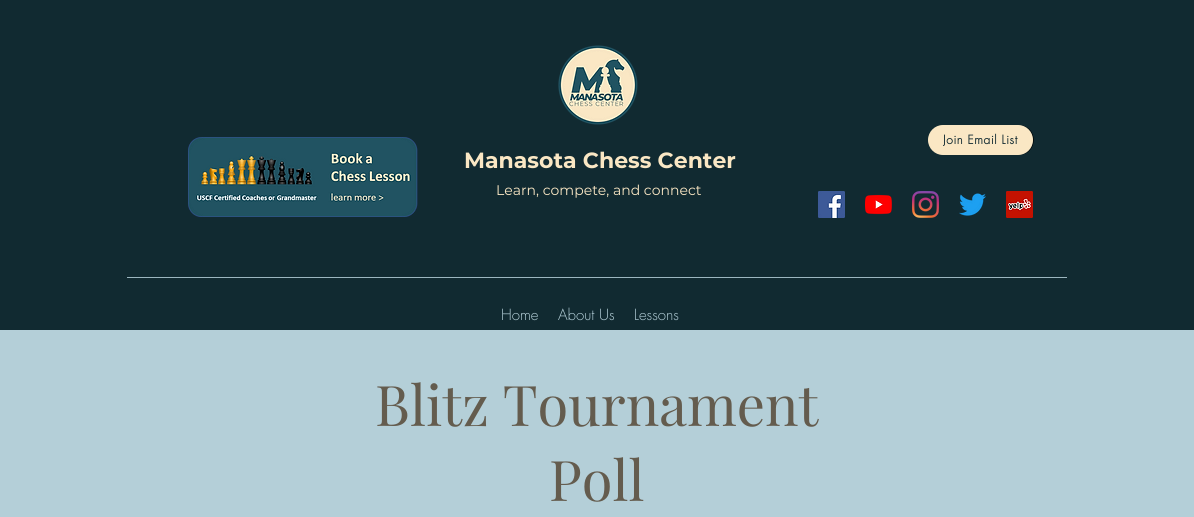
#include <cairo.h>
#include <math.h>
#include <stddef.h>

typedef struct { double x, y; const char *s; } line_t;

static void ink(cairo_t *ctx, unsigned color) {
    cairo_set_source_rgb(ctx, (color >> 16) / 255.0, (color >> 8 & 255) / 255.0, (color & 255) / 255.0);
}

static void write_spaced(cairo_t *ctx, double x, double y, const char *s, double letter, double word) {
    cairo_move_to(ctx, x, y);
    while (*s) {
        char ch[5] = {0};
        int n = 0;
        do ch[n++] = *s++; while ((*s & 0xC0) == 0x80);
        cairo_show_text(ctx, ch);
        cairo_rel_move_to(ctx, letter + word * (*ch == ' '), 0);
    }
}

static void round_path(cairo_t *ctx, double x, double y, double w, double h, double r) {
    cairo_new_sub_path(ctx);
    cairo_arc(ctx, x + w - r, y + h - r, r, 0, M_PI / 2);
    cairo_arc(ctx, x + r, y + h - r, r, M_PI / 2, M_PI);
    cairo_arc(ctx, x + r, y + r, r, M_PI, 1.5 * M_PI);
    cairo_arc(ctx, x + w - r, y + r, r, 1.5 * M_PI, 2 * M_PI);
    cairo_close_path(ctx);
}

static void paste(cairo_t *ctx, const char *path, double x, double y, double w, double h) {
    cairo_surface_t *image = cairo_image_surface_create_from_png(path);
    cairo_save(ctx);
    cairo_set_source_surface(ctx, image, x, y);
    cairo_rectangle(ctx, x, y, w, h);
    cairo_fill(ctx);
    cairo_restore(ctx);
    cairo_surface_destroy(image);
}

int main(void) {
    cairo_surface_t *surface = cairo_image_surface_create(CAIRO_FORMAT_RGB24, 1194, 517);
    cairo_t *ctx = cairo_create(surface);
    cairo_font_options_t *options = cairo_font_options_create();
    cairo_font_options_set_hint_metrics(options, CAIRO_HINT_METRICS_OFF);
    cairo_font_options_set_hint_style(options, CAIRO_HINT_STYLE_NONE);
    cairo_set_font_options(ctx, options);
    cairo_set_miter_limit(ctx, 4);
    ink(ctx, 0xB4CFD8);
    cairo_paint(ctx);
    ink(ctx, 0x112A31);
    cairo_rectangle(ctx, 0, 0, 1194, 330);
    cairo_fill(ctx);
    paste(ctx, "media/1.png", 558, 45, 80, 80);
    paste(ctx, "media/2.png", 188, 137, 230, 80);
    cairo_select_font_face(ctx, "Montserrat", CAIRO_FONT_SLANT_NORMAL, CAIRO_FONT_WEIGHT_BOLD);
    cairo_set_font_size(ctx, 22);
    ink(ctx, 0xFAE7C4);
    cairo_move_to(ctx, 464, 168);
    cairo_show_text(ctx, "Manasota Chess Center");
    ink(ctx, 0x000000);
    cairo_new_path(ctx);
    cairo_move_to(ctx, 1018, 155);
    cairo_curve_to(ctx, 1039, 155, 1039, 125, 1018, 125);
    cairo_curve_to(ctx, 1026.5, 125, 1033, 131.5, 1033, 140);
    cairo_curve_to(ctx, 1033, 148.5, 1026.5, 155, 1018, 155);
    cairo_close_path(ctx);
    cairo_fill(ctx);
    ink(ctx, 0xFAE7C4);
    round_path(ctx, 928, 125, 105, 30, 15);
    cairo_fill(ctx);
    cairo_save(ctx);
    cairo_rectangle(ctx, 943, 132, 75, 16);
    cairo_clip(ctx);
    cairo_select_font_face(ctx, "futura", CAIRO_FONT_SLANT_NORMAL, CAIRO_FONT_WEIGHT_BOLD);
    cairo_set_font_size(ctx, 12);
    ink(ctx, 0x112A31);
    write_spaced(ctx, 943, 144, "Join Email List", 0.6, 0);
    cairo_restore(ctx);
    cairo_select_font_face(ctx, "Montserrat", CAIRO_FONT_SLANT_NORMAL, CAIRO_FONT_WEIGHT_NORMAL);
    cairo_set_font_size(ctx, 14);
    cairo_move_to(ctx, 496, 195);
    cairo_show_text(ctx, "Learn, compete, and connect");
    paste(ctx, "media/3.png", 818, 191, 27, 27);
    paste(ctx, "media/4.png", 865, 194, 27, 21);
    paste(ctx, "media/5.png", 912, 191, 27, 27);
    paste(ctx, "media/6.png", 959, 193, 27, 23);
    paste(ctx, "media/7.png", 1006, 191, 27, 27);
    ink(ctx, 0x9CB6BF);
    cairo_rectangle(ctx, 127, 277, 940, 1);
    cairo_fill(ctx);
    cairo_select_font_face(ctx, "futura Light", CAIRO_FONT_SLANT_NORMAL, CAIRO_FONT_WEIGHT_NORMAL);
    cairo_set_font_size(ctx, 15);
    ink(ctx, 0xB4CFD8);
    {
        static const line_t items[] = {
            {501, 320, "Home"},
            {558, 320, "About Us"},
            {634, 320, "Lessons"},
        };
        for (size_t i = 0; i < sizeof items / sizeof *items; i++) {
            cairo_move_to(ctx, items[i].x, items[i].y);
            cairo_show_text(ctx, items[i].s);
        }
    }
    cairo_select_font_face(ctx, "Playfair Display", CAIRO_FONT_SLANT_NORMAL, CAIRO_FONT_WEIGHT_NORMAL);
    cairo_set_font_size(ctx, 56);
    ink(ctx, 0x645C4E);
    cairo_move_to(ctx, 375, 426);
    cairo_show_text(ctx, "Blitz Tournament");
    cairo_move_to(ctx, 549, 501);
    cairo_show_text(ctx, "Poll");
    cairo_surface_write_to_png(surface, "image.png");
    cairo_font_options_destroy(options);
    cairo_destroy(ctx);
    cairo_surface_destroy(surface);
    return 0;
}
